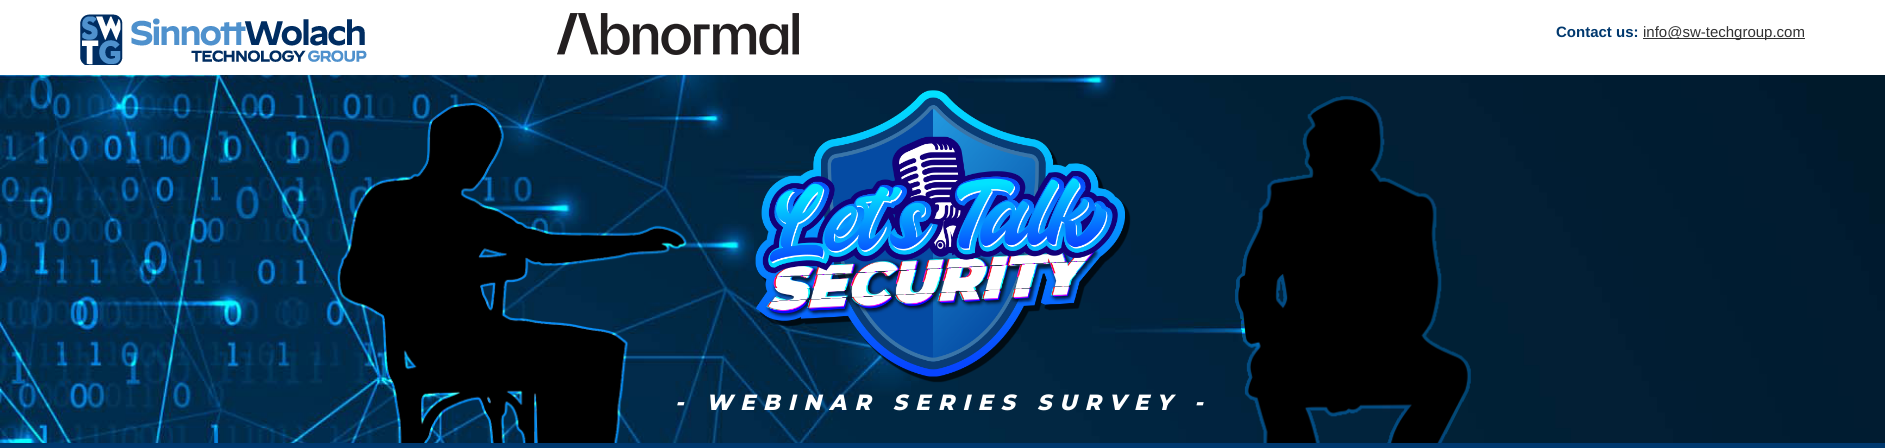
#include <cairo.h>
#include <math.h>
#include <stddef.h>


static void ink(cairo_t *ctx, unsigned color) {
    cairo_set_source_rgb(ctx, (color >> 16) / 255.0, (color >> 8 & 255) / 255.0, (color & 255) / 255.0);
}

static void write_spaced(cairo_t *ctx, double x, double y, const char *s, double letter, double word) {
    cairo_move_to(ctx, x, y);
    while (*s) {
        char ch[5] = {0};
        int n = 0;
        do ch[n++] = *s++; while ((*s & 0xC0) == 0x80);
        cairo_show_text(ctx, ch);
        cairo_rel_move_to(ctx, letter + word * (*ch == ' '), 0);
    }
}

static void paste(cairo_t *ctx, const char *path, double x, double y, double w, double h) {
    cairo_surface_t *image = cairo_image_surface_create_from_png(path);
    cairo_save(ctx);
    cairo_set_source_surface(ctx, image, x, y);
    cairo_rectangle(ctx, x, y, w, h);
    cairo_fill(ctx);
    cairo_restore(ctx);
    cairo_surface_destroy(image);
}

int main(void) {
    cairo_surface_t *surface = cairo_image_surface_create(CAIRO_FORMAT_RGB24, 1885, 448);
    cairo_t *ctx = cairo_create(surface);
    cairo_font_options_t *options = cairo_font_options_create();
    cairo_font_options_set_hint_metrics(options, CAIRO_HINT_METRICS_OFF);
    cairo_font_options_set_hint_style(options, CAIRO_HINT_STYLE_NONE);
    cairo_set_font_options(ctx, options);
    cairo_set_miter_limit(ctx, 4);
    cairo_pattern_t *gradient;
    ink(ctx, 0xFFFFFF);
    cairo_paint(ctx);
    paste(ctx, "media/1.png", 80, 14, 287, 51);
    paste(ctx, "media/2.png", 557, 13, 242, 42);
    cairo_select_font_face(ctx, "Liberation Sans", CAIRO_FONT_SLANT_NORMAL, CAIRO_FONT_WEIGHT_BOLD);
    cairo_set_font_size(ctx, 15);
    ink(ctx, 0x00386E);
    cairo_move_to(ctx, 1556, 37);
    cairo_show_text(ctx, "Contact us:");
    ink(ctx, 0x333333);
    cairo_rectangle(ctx, 1643, 38, 162, 1);
    cairo_fill(ctx);
    cairo_select_font_face(ctx, "Liberation Sans", CAIRO_FONT_SLANT_NORMAL, CAIRO_FONT_WEIGHT_NORMAL);
    cairo_move_to(ctx, 1643, 37);
    cairo_show_text(ctx, "info@sw-techgroup.com");
    paste(ctx, "media/3.png", 0, 75, 1885, 368);
    paste(ctx, "media/4.png", 755, 90, 376, 293);
    cairo_select_font_face(ctx, "Montserrat ExtraBold", CAIRO_FONT_SLANT_ITALIC, CAIRO_FONT_WEIGHT_NORMAL);
    cairo_set_font_size(ctx, 22);
    ink(ctx, 0xFFFFFF);
    write_spaced(ctx, 675, 410, "- WEBINAR SERIES SURVEY -", 8, 0);
    gradient = cairo_pattern_create_linear(943, 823, 943, 443);
    cairo_pattern_add_color_stop_rgba(gradient, 0, 0.004, 0.329, 0.643, 1);
    cairo_pattern_add_color_stop_rgba(gradient, 0.34, 0.004, 0.31, 0.608, 1);
    cairo_pattern_add_color_stop_rgba(gradient, 0.69, 0.004, 0.275, 0.541, 1);
    cairo_pattern_add_color_stop_rgba(gradient, 1, 0, 0.22, 0.431, 1);
    cairo_set_source(ctx, gradient);
    cairo_pattern_destroy(gradient);
    cairo_rectangle(ctx, 0, 443, 1885, 5);
    cairo_fill(ctx);
    cairo_surface_write_to_png(surface, "image.png");
    cairo_font_options_destroy(options);
    cairo_destroy(ctx);
    cairo_surface_destroy(surface);
    return 0;
}
